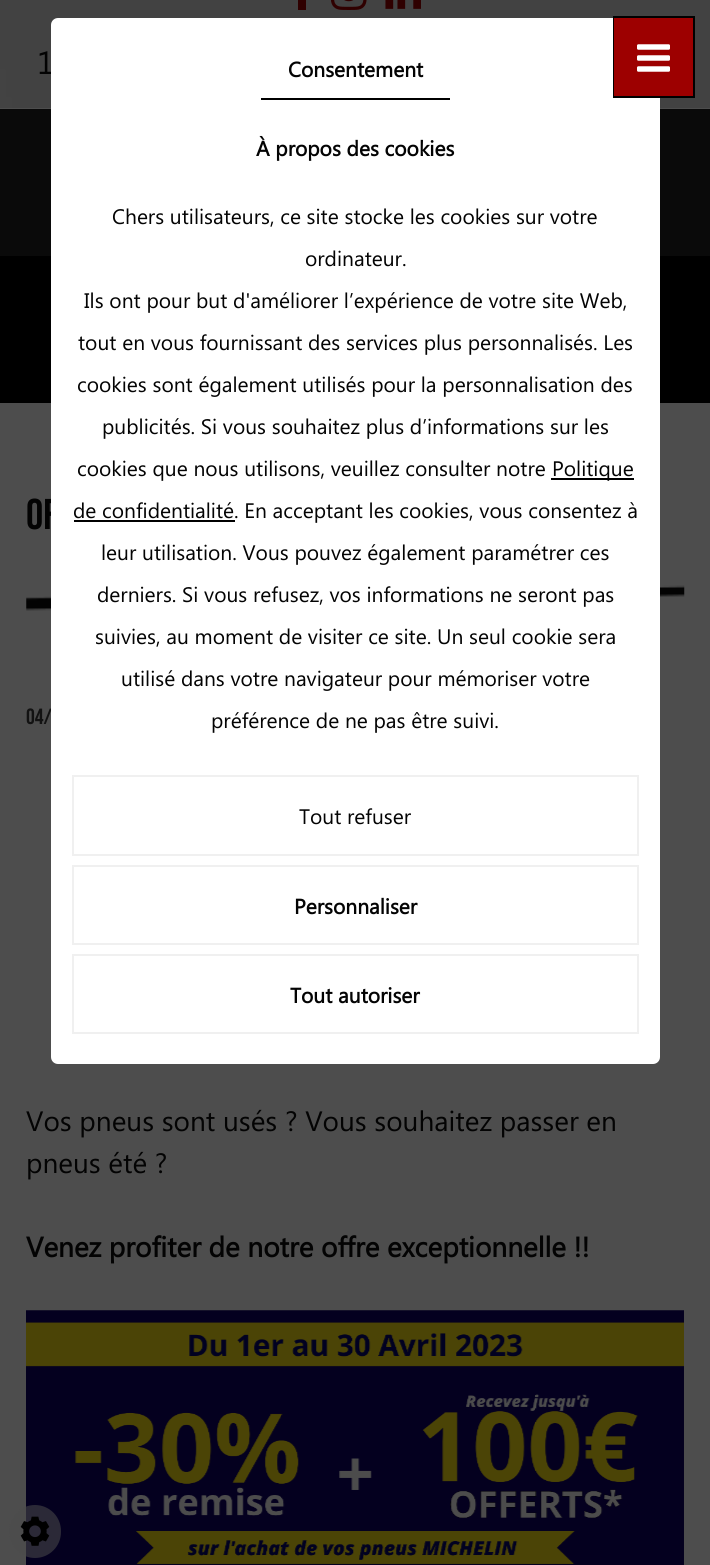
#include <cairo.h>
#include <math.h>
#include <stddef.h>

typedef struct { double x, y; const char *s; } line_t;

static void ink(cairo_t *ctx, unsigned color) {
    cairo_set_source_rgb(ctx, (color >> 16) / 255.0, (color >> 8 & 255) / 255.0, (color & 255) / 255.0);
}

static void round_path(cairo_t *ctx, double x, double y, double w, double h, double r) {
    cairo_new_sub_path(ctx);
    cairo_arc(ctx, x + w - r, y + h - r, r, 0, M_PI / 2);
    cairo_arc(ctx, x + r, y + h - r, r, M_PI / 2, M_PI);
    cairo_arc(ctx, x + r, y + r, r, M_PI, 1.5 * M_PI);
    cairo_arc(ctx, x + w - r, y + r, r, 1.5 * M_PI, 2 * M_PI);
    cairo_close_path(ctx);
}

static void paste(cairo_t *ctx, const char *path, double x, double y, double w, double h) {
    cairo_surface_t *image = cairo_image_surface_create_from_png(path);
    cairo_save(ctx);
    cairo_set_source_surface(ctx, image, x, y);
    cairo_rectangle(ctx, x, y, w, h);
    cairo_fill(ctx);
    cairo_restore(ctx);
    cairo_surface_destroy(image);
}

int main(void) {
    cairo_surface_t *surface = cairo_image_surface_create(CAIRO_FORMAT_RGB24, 710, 1565);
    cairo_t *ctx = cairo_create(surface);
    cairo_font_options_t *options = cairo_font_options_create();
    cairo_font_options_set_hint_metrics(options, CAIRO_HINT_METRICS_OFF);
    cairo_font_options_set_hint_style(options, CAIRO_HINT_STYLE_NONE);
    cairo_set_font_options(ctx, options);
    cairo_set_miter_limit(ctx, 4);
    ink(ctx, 0x4D4D4D);
    cairo_paint(ctx);
    paste(ctx, "media/1.png", 0, 0, 710, 108);
    ink(ctx, 0x2F0000);
    cairo_rectangle(ctx, 298, 0, 8, 10);
    cairo_fill(ctx);
    paste(ctx, "media/2.png", 331, 0, 36, 10);
    paste(ctx, "media/3.png", 385, 0, 36, 9);
    cairo_select_font_face(ctx, "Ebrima", CAIRO_FONT_SLANT_NORMAL, CAIRO_FONT_WEIGHT_NORMAL);
    cairo_set_font_size(ctx, 32);
    ink(ctx, 0x030303);
    cairo_move_to(ctx, 37, 74);
    cairo_show_text(ctx, "1");
    ink(ctx, 0x0A0A0A);
    cairo_rectangle(ctx, 0, 109, 710, 147);
    cairo_fill(ctx);
    ink(ctx, 0x000000);
    cairo_rectangle(ctx, 0, 256, 710, 147);
    cairo_fill(ctx);
    cairo_select_font_face(ctx, "Bebas Neue", CAIRO_FONT_SLANT_NORMAL, CAIRO_FONT_WEIGHT_NORMAL);
    cairo_set_font_size(ctx, 43);
    ink(ctx, 0x030303);
    cairo_move_to(ctx, 26, 529);
    cairo_show_text(ctx, "OF");
    paste(ctx, "media/6.png", 26, 585, 659, 26);
    cairo_set_font_size(ctx, 22);
    ink(ctx, 0x121212);
    cairo_move_to(ctx, 26, 724);
    cairo_show_text(ctx, "04/");
    ink(ctx, 0xFFFFFF);
    round_path(ctx, 51, 18, 609, 1046, 7);
    cairo_fill(ctx);
    ink(ctx, 0x000000);
    cairo_rectangle(ctx, 261, 98, 189, 2);
    cairo_fill(ctx);
    cairo_select_font_face(ctx, "Ebrima", CAIRO_FONT_SLANT_NORMAL, CAIRO_FONT_WEIGHT_BOLD);
    cairo_set_font_size(ctx, 21);
    ink(ctx, 0x030303);
    cairo_move_to(ctx, 288, 77);
    cairo_show_text(ctx, "Consentement");
    cairo_move_to(ctx, 256, 156);
    cairo_show_text(ctx, "À propos des cookies");
    cairo_select_font_face(ctx, "Ebrima", CAIRO_FONT_SLANT_NORMAL, CAIRO_FONT_WEIGHT_NORMAL);
    {
        static const line_t items[] = {
            {112, 224, "Chers utilisateurs, ce site stocke les cookies sur votre"},
            {305, 266, "ordinateur."},
            {84, 308, "Ils ont pour but d'améliorer l’expérience de votre site Web,"},
            {78, 350, "tout en vous fournissant des services plus personnalisés. Les"},
            {77, 392, "cookies sont également utilisés pour la personnalisation des"},
            {102, 434, "publicités. Si vous souhaitez plus d’informations sur les"},
            {77, 476, "cookies que nous utilisons, veuillez consulter notre"},
        };
        for (size_t i = 0; i < sizeof items / sizeof *items; i++) {
            cairo_move_to(ctx, items[i].x, items[i].y);
            cairo_show_text(ctx, items[i].s);
        }
    }
    ink(ctx, 0x000000);
    cairo_rectangle(ctx, 551, 478, 83, 2);
    cairo_fill(ctx);
    ink(ctx, 0x030303);
    cairo_move_to(ctx, 552, 476);
    cairo_show_text(ctx, "Politique");
    ink(ctx, 0x000000);
    cairo_rectangle(ctx, 74, 520, 161, 2);
    cairo_fill(ctx);
    ink(ctx, 0x030303);
    {
        static const line_t items[] = {
            {73, 518, "de confidentialité. En acceptant les cookies, vous consentez à"},
            {101, 560, "leur utilisation. Vous pouvez également paramétrer ces"},
            {97, 602, "derniers. Si vous refusez, vos informations ne seront pas"},
            {95, 644, "suivies, au moment de visiter ce site. Un seul cookie sera"},
            {121, 686, "utilisé dans votre navigateur pour mémoriser votre"},
            {211, 728, "préférence de ne pas être suivi."},
        };
        for (size_t i = 0; i < sizeof items / sizeof *items; i++) {
            cairo_move_to(ctx, items[i].x, items[i].y);
            cairo_show_text(ctx, items[i].s);
        }
    }
    cairo_rectangle(ctx, 73, 776, 565, 79);
    ink(ctx, 0xF0F0F0);
    cairo_stroke(ctx);
    ink(ctx, 0x030303);
    cairo_move_to(ctx, 299, 824);
    cairo_show_text(ctx, "Tout refuser");
    cairo_rectangle(ctx, 73, 866, 565, 78);
    ink(ctx, 0xF0F0F0);
    cairo_stroke(ctx);
    cairo_select_font_face(ctx, "Ebrima", CAIRO_FONT_SLANT_NORMAL, CAIRO_FONT_WEIGHT_BOLD);
    ink(ctx, 0x030303);
    cairo_move_to(ctx, 294, 914);
    cairo_show_text(ctx, "Personnaliser");
    cairo_rectangle(ctx, 73, 955, 565, 78);
    ink(ctx, 0xF0F0F0);
    cairo_stroke(ctx);
    ink(ctx, 0x030303);
    cairo_move_to(ctx, 290, 1003);
    cairo_show_text(ctx, "Tout autoriser");
    paste(ctx, "media/7.png", 26, 1310, 658, 255);
    cairo_set_source_rgba(ctx, 0.302, 0.302, 0.302, 0.54);
    round_path(ctx, 9, 1505, 52, 53, 26);
    cairo_fill(ctx);
    paste(ctx, "media/4.png", 20, 1516, 30, 30);
    cairo_rectangle(ctx, 614, 17, 80, 80);
    ink(ctx, 0x000000);
    cairo_stroke(ctx);
    ink(ctx, 0x9D0000);
    cairo_rectangle(ctx, 614, 18, 79, 78);
    cairo_fill(ctx);
    paste(ctx, "media/5.png", 637, 44, 33, 28);
    cairo_select_font_face(ctx, "Ebrima", CAIRO_FONT_SLANT_NORMAL, CAIRO_FONT_WEIGHT_NORMAL);
    cairo_set_font_size(ctx, 28);
    ink(ctx, 0x030303);
    cairo_move_to(ctx, 26, 1131);
    cairo_show_text(ctx, "Vos pneus sont usés ? Vous souhaitez passer en");
    cairo_move_to(ctx, 26, 1173);
    cairo_show_text(ctx, "pneus été ?");
    cairo_select_font_face(ctx, "Ebrima", CAIRO_FONT_SLANT_NORMAL, CAIRO_FONT_WEIGHT_BOLD);
    cairo_move_to(ctx, 26, 1257);
    cairo_show_text(ctx, "Venez profiter de notre offre exceptionnelle !!");
    cairo_surface_write_to_png(surface, "image.png");
    cairo_font_options_destroy(options);
    cairo_destroy(ctx);
    cairo_surface_destroy(surface);
    return 0;
}
